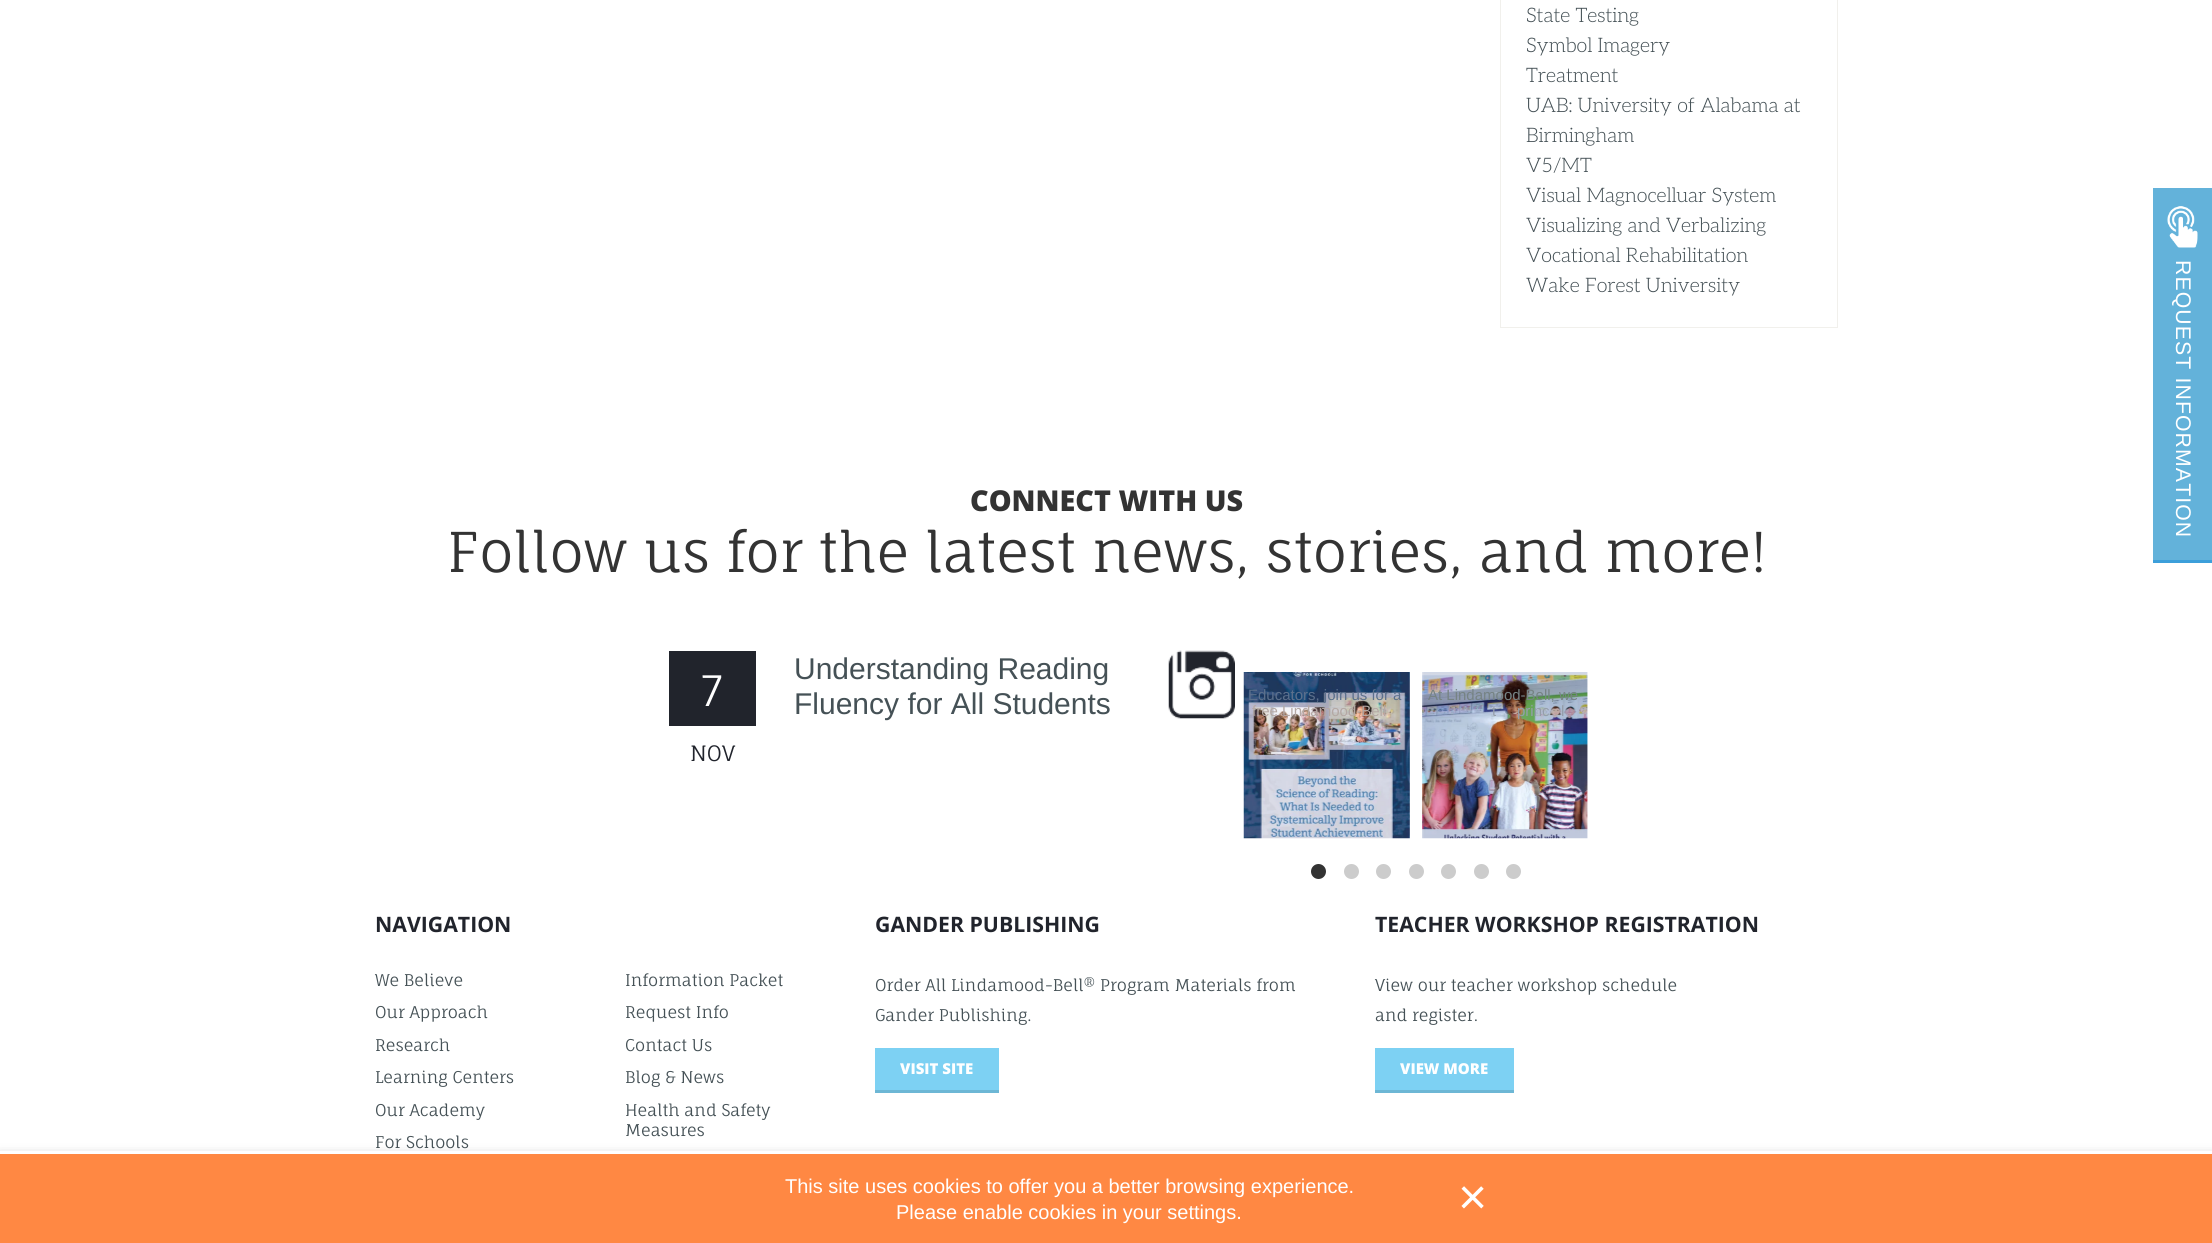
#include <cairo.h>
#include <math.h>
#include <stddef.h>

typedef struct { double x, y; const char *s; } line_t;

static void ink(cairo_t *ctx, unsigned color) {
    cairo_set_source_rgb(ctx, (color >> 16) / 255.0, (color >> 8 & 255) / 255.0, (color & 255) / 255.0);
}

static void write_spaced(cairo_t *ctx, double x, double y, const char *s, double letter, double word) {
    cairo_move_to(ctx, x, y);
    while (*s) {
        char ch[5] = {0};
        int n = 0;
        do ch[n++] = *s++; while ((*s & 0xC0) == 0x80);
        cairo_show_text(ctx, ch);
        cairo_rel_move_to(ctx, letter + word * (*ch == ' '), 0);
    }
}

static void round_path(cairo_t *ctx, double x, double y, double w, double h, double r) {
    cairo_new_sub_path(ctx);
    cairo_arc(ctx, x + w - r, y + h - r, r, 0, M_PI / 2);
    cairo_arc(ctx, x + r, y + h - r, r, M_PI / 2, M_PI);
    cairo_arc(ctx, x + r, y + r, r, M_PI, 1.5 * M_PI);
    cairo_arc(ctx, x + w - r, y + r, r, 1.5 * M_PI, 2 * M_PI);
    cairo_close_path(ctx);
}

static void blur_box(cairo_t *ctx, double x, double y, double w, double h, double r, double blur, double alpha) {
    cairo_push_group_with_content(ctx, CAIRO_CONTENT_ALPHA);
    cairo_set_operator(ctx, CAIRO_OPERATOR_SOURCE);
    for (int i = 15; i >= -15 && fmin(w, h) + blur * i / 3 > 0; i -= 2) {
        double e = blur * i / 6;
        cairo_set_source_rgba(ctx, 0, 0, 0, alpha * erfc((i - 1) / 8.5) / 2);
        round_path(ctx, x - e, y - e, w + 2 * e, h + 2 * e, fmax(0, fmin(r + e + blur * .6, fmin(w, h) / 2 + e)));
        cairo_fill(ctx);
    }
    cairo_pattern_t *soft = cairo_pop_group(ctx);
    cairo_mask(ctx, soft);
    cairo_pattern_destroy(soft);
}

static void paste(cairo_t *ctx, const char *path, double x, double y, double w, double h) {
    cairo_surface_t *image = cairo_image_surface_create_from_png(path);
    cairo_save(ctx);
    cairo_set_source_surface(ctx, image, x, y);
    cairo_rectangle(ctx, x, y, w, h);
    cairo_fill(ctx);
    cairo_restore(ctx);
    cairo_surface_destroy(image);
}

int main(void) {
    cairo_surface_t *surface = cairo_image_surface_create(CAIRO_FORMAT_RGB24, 2212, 1243);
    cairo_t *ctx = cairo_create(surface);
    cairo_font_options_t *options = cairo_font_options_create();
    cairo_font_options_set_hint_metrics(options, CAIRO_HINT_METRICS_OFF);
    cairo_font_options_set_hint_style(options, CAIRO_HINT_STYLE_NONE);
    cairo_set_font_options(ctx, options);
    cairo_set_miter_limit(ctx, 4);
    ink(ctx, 0xFFFFFF);
    cairo_paint(ctx);
    cairo_rectangle(ctx, 1500.5, -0.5, 337, 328);
    ink(ctx, 0xF1F0EC);
    cairo_set_line_width(ctx, 1);
    cairo_stroke(ctx);
    cairo_select_font_face(ctx, "Aleo Light", CAIRO_FONT_SLANT_NORMAL, CAIRO_FONT_WEIGHT_NORMAL);
    cairo_set_font_size(ctx, 20);
    ink(ctx, 0x455156);
    {
        static const line_t items[] = {
            {1526, 22, "State Testing"},
            {1526, 52, "Symbol Imagery"},
            {1526, 82, "Treatment"},
            {1526, 112, "UAB: University of Alabama at"},
            {1526, 142, "Birmingham"},
            {1526, 172, "V5/MT"},
            {1526, 202, "Visual Magnocelluar System"},
            {1526, 232, "Visualizing and Verbalizing"},
            {1526, 262, "Vocational Rehabilitation"},
            {1526, 292, "Wake Forest University"},
        };
        for (size_t i = 0; i < sizeof items / sizeof *items; i++) {
            cairo_move_to(ctx, items[i].x, items[i].y);
            cairo_show_text(ctx, items[i].s);
        }
    }
    cairo_select_font_face(ctx, "Open Sans ExtraBold", CAIRO_FONT_SLANT_NORMAL, CAIRO_FONT_WEIGHT_NORMAL);
    cairo_set_font_size(ctx, 28.75);
    ink(ctx, 0x333333);
    cairo_move_to(ctx, 970, 511);
    cairo_show_text(ctx, "CONNECT WITH US");
    cairo_select_font_face(ctx, "Fauna One", CAIRO_FONT_SLANT_NORMAL, CAIRO_FONT_WEIGHT_NORMAL);
    cairo_set_font_size(ctx, 55);
    cairo_move_to(ctx, 447, 572);
    cairo_show_text(ctx, "Follow us for the latest news, stories, and more!");
    ink(ctx, 0x21242C);
    cairo_rectangle(ctx, 669, 651, 87, 75);
    cairo_fill(ctx);
    cairo_set_font_size(ctx, 42);
    ink(ctx, 0xFFFFFF);
    cairo_move_to(ctx, 701, 706);
    cairo_show_text(ctx, "7");
    cairo_set_font_size(ctx, 21.25);
    ink(ctx, 0x21242C);
    cairo_move_to(ctx, 690, 761);
    cairo_show_text(ctx, "NOV");
    cairo_select_font_face(ctx, "Liberation Sans", CAIRO_FONT_SLANT_NORMAL, CAIRO_FONT_WEIGHT_NORMAL);
    cairo_set_font_size(ctx, 30);
    ink(ctx, 0x455156);
    cairo_move_to(ctx, 794, 679);
    cairo_show_text(ctx, "Understanding Reading");
    cairo_move_to(ctx, 794, 714);
    cairo_show_text(ctx, "Fluency for All Students");
    paste(ctx, "media/1.png", 1168, 650, 67, 69);
    paste(ctx, "media/2.png", 1243, 672, 167, 167);
    cairo_set_font_size(ctx, 15);
    ink(ctx, 0x5C708C);
    cairo_move_to(ctx, 1248, 700);
    cairo_show_text(ctx, "Educators, join us for a");
    ink(ctx, 0xB4A8A4);
    cairo_move_to(ctx, 1252, 716);
    cairo_show_text(ctx, "free Lindamood-Bell");
    paste(ctx, "media/3.png", 1422, 672, 166, 167);
    ink(ctx, 0x768384);
    cairo_move_to(ctx, 1428, 700);
    cairo_show_text(ctx, "At Lindamood-Bell, we");
    ink(ctx, 0x959EAA);
    {
        static const line_t items[] = {
            {1492, 716, "t"},
            {1517, 716, "princ"},
            {1561, 716, "l"},
        };
        for (size_t i = 0; i < sizeof items / sizeof *items; i++) {
            cairo_move_to(ctx, items[i].x, items[i].y);
            cairo_show_text(ctx, items[i].s);
        }
    }
    ink(ctx, 0x333333);
    cairo_new_path(ctx);
    cairo_arc(ctx, 1318.5, 871.5, 7.5, 0, 2 * M_PI);
    cairo_fill(ctx);
    ink(ctx, 0xCCCCCC);
    cairo_arc(ctx, 1351.5, 871.5, 7.5, 0, 2 * M_PI);
    cairo_fill(ctx);
    cairo_arc(ctx, 1383.5, 871.5, 7.5, 0, 2 * M_PI);
    cairo_fill(ctx);
    cairo_arc(ctx, 1416.5, 871.5, 7.5, 0, 2 * M_PI);
    cairo_fill(ctx);
    cairo_arc(ctx, 1448.5, 871.5, 7.5, 0, 2 * M_PI);
    cairo_fill(ctx);
    cairo_arc(ctx, 1481.5, 871.5, 7.5, 0, 2 * M_PI);
    cairo_fill(ctx);
    cairo_arc(ctx, 1513.5, 871.5, 7.5, 0, 2 * M_PI);
    cairo_fill(ctx);
    cairo_select_font_face(ctx, "Open Sans", CAIRO_FONT_SLANT_NORMAL, CAIRO_FONT_WEIGHT_BOLD);
    cairo_set_font_size(ctx, 21.25);
    ink(ctx, 0x21242C);
    cairo_move_to(ctx, 375, 932);
    cairo_show_text(ctx, "NAVIGATION");
    cairo_select_font_face(ctx, "Fauna One", CAIRO_FONT_SLANT_NORMAL, CAIRO_FONT_WEIGHT_NORMAL);
    cairo_set_font_size(ctx, 16.25);
    ink(ctx, 0x455156);
    {
        static const line_t items[] = {
            {375, 986, "We Believe"},
            {375, 1018, "Our Approach"},
            {375, 1051, "Research"},
            {375, 1083, "Learning Centers"},
            {375, 1116, "Our Academy"},
            {375, 1148, "For Schools"},
            {625, 986, "Information Packet"},
            {625, 1018, "Request Info"},
            {625, 1051, "Contact Us"},
            {625, 1083, "Blog & News"},
            {625, 1116, "Health and Safety"},
            {625, 1136, "Measures"},
        };
        for (size_t i = 0; i < sizeof items / sizeof *items; i++) {
            cairo_move_to(ctx, items[i].x, items[i].y);
            cairo_show_text(ctx, items[i].s);
        }
    }
    cairo_select_font_face(ctx, "Open Sans", CAIRO_FONT_SLANT_NORMAL, CAIRO_FONT_WEIGHT_BOLD);
    cairo_set_font_size(ctx, 21.25);
    ink(ctx, 0x21242C);
    cairo_move_to(ctx, 875, 932);
    cairo_show_text(ctx, "GANDER PUBLISHING");
    cairo_select_font_face(ctx, "Fauna One", CAIRO_FONT_SLANT_NORMAL, CAIRO_FONT_WEIGHT_NORMAL);
    cairo_set_font_size(ctx, 16.25);
    ink(ctx, 0x455156);
    cairo_move_to(ctx, 875, 991);
    cairo_show_text(ctx, "Order All Lindamood-Bell® Program Materials from");
    cairo_move_to(ctx, 875, 1021);
    cairo_show_text(ctx, "Gander Publishing.");
    ink(ctx, 0x7DD1F3);
    cairo_rectangle(ctx, 875, 1048, 124, 42);
    cairo_fill(ctx);
    ink(ctx, 0x6DB7D5);
    cairo_rectangle(ctx, 875, 1090, 124, 3);
    cairo_fill(ctx);
    cairo_select_font_face(ctx, "Open Sans ExtraBold", CAIRO_FONT_SLANT_NORMAL, CAIRO_FONT_WEIGHT_NORMAL);
    cairo_set_font_size(ctx, 15);
    ink(ctx, 0xFFFFFF);
    cairo_move_to(ctx, 900, 1074);
    cairo_show_text(ctx, "VISIT SITE");
    cairo_select_font_face(ctx, "Open Sans", CAIRO_FONT_SLANT_NORMAL, CAIRO_FONT_WEIGHT_BOLD);
    cairo_set_font_size(ctx, 21.25);
    ink(ctx, 0x21242C);
    cairo_move_to(ctx, 1375, 932);
    cairo_show_text(ctx, "TEACHER WORKSHOP REGISTRATION");
    cairo_select_font_face(ctx, "Fauna One", CAIRO_FONT_SLANT_NORMAL, CAIRO_FONT_WEIGHT_NORMAL);
    cairo_set_font_size(ctx, 16.25);
    ink(ctx, 0x455156);
    cairo_move_to(ctx, 1375, 991);
    cairo_show_text(ctx, "View our teacher workshop schedule");
    cairo_move_to(ctx, 1375, 1021);
    cairo_show_text(ctx, "and register.");
    ink(ctx, 0x7DD1F3);
    cairo_rectangle(ctx, 1375, 1048, 139, 42);
    cairo_fill(ctx);
    ink(ctx, 0x6DB7D5);
    cairo_rectangle(ctx, 1375, 1090, 139, 3);
    cairo_fill(ctx);
    cairo_select_font_face(ctx, "Open Sans ExtraBold", CAIRO_FONT_SLANT_NORMAL, CAIRO_FONT_WEIGHT_NORMAL);
    cairo_set_font_size(ctx, 15);
    ink(ctx, 0xFFFFFF);
    cairo_move_to(ctx, 1400, 1074);
    cairo_show_text(ctx, "VIEW MORE");
    ink(ctx, 0x63B2DA);
    cairo_rectangle(ctx, 2153, 188, 59, 372);
    cairo_fill(ctx);
    paste(ctx, "media/4.png", 2167, 206, 31, 42);
    ink(ctx, 0x3C9FDA);
    cairo_rectangle(ctx, 2153, 560, 59, 3);
    cairo_fill(ctx);
    cairo_select_font_face(ctx, "Liberation Sans", CAIRO_FONT_SLANT_NORMAL, CAIRO_FONT_WEIGHT_NORMAL);
    cairo_set_font_size(ctx, 21.25);
    ink(ctx, 0xFFFFFF);
    cairo_save(ctx);
    cairo_translate(ctx, 2176, 260);
    cairo_rotate(ctx, 90 * M_PI / 180);
    write_spaced(ctx, 0, 0, "REQUEST INFORMATION", 1.1, 0);
    cairo_restore(ctx);
    ink(ctx, 0x000000);
    blur_box(ctx, 0, 1158, 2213, 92, 0, 6, 0.5);
    ink(ctx, 0xFFFFFF);
    cairo_rectangle(ctx, 0, 1151, 2212, 3);
    cairo_fill(ctx);
    ink(ctx, 0xFF8843);
    cairo_rectangle(ctx, 0, 1154, 2212, 89);
    cairo_fill(ctx);
    cairo_set_font_size(ctx, 20);
    ink(ctx, 0xFFFFFF);
    cairo_move_to(ctx, 785, 1193);
    cairo_show_text(ctx, "This site uses cookies to offer you a better browsing experience.");
    cairo_move_to(ctx, 896, 1219);
    cairo_show_text(ctx, "Please enable cookies in your settings.");
    cairo_set_font_size(ctx, 50);
    cairo_move_to(ctx, 1458, 1214);
    cairo_show_text(ctx, "×");
    cairo_surface_write_to_png(surface, "image.png");
    cairo_font_options_destroy(options);
    cairo_destroy(ctx);
    cairo_surface_destroy(surface);
    return 0;
}
